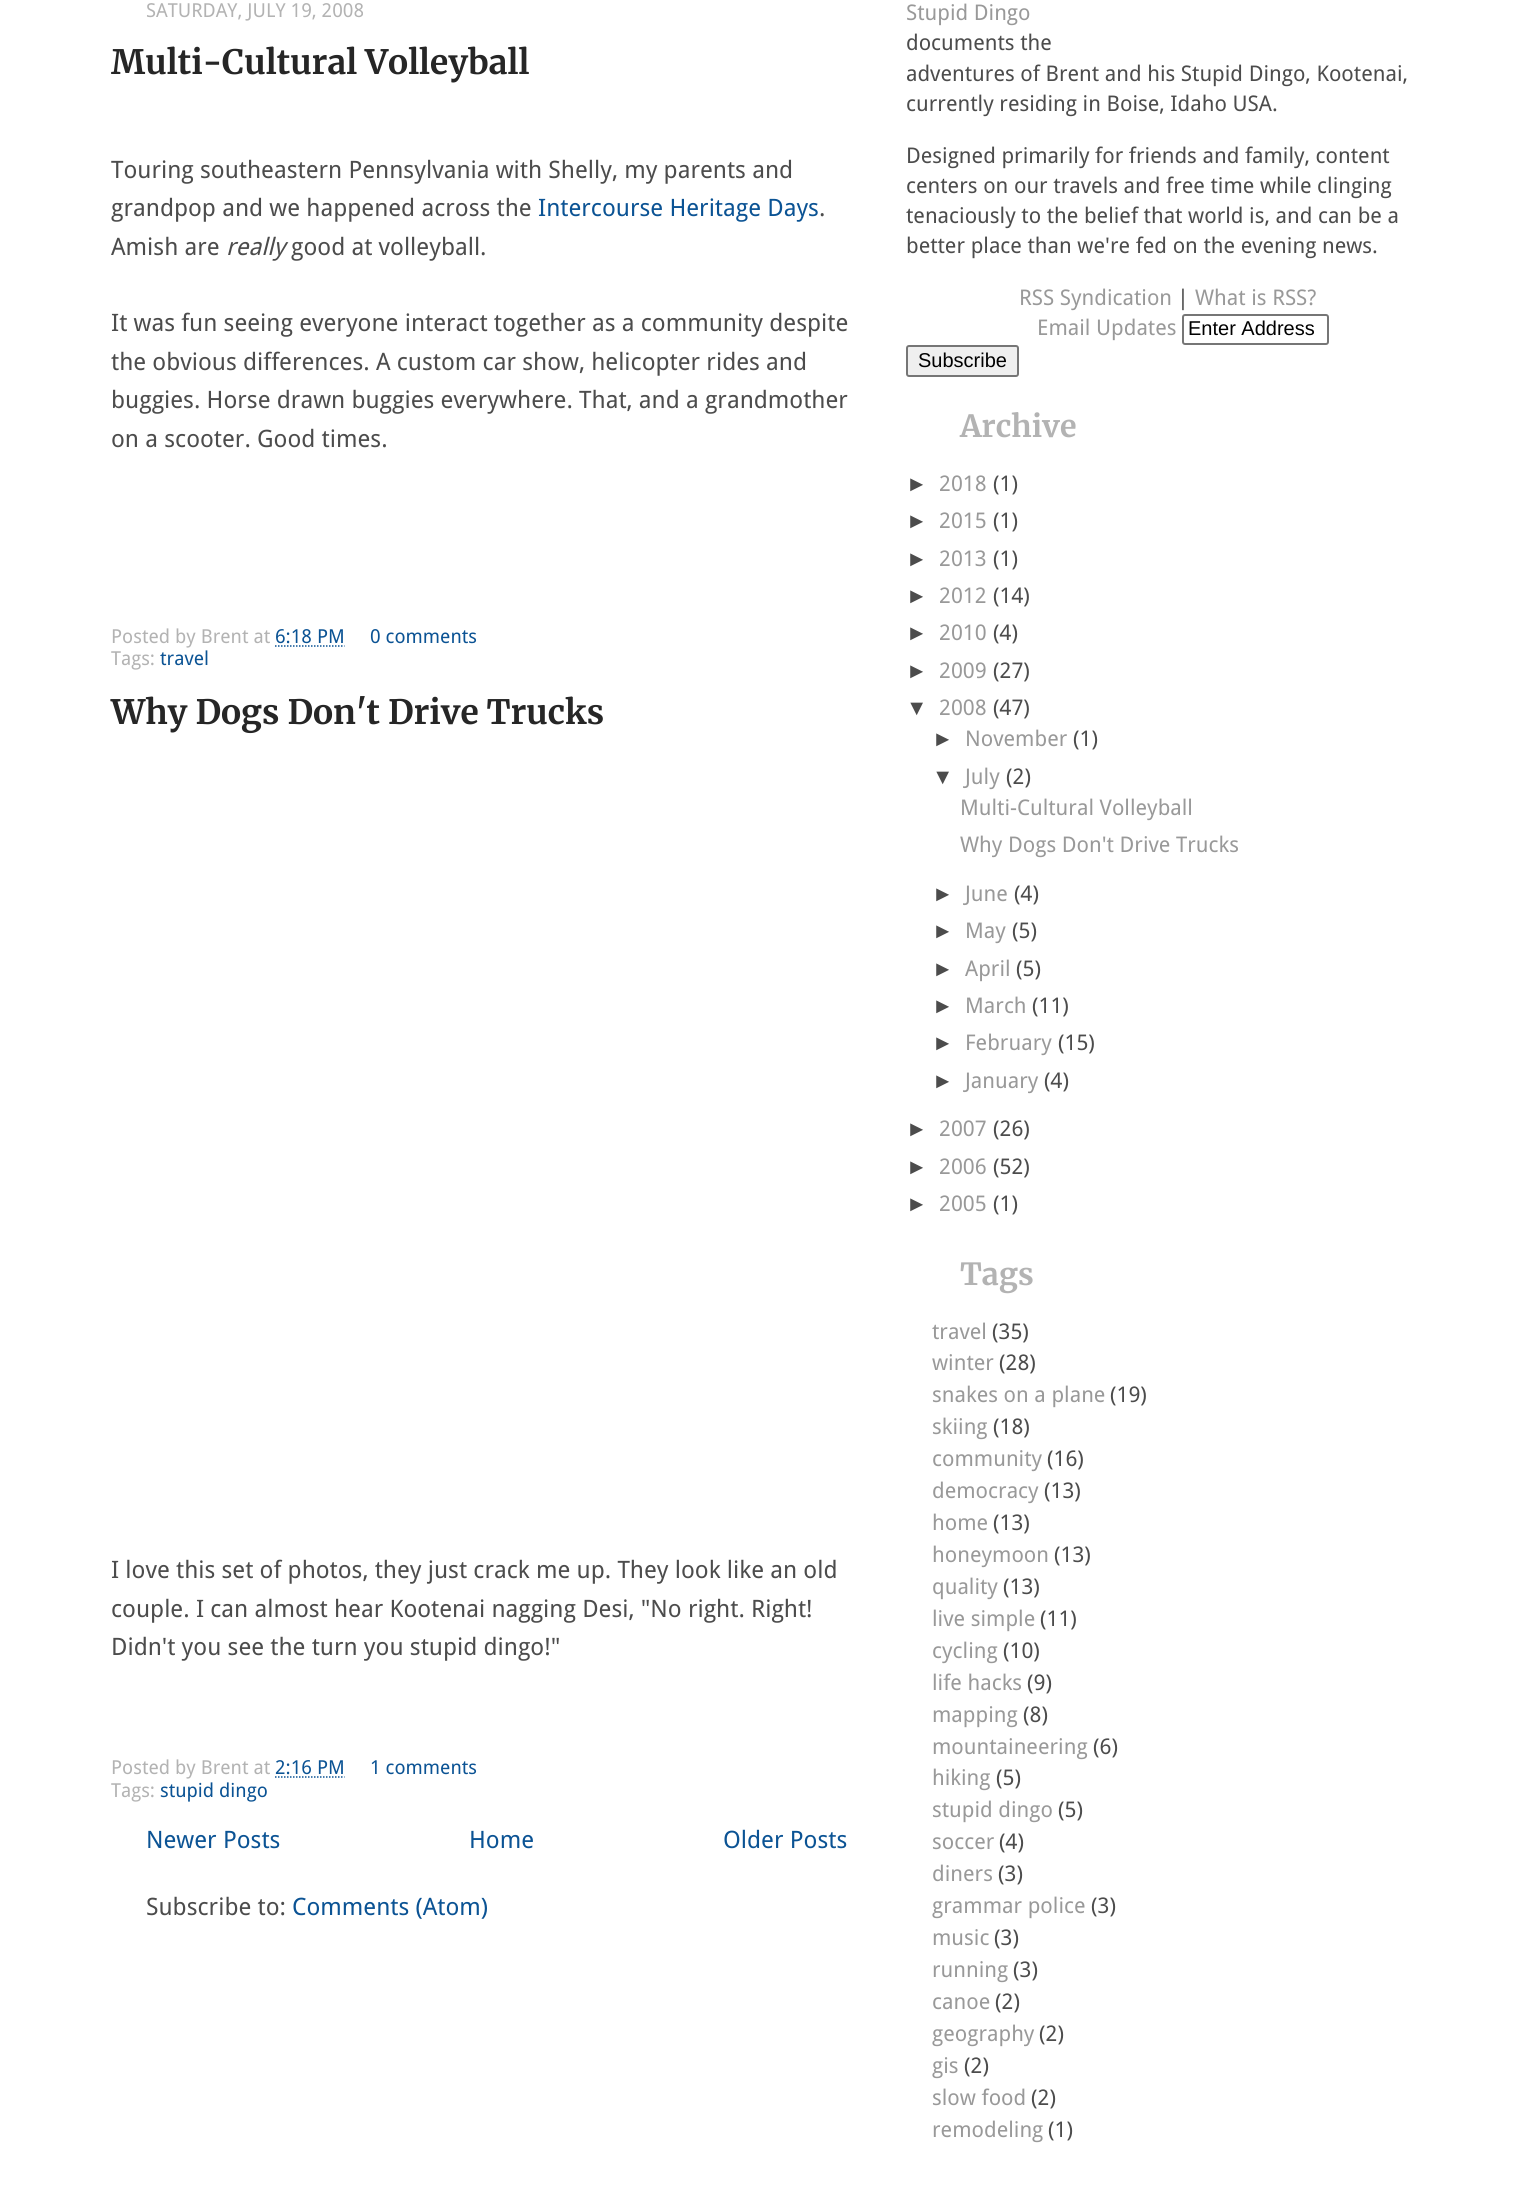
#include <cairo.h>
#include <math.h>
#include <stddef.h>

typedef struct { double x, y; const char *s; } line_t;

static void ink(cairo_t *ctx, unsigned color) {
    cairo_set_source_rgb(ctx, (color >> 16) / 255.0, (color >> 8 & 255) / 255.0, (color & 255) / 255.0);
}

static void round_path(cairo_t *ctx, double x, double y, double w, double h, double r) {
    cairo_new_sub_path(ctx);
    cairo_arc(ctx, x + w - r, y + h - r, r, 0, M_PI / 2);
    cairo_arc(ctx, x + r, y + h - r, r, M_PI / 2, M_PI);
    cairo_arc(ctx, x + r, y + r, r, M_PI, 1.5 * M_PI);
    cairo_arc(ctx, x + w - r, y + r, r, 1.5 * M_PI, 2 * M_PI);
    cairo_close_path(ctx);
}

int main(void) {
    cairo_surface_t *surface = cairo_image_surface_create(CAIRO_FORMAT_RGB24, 1526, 2197);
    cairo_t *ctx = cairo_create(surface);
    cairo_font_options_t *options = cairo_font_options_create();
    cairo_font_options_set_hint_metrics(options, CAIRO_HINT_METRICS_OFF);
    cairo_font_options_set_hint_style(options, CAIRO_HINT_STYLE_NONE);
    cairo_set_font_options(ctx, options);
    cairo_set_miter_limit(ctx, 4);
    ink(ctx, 0xFFFFFF);
    cairo_paint(ctx);
    cairo_select_font_face(ctx, "Droid Sans", CAIRO_FONT_SLANT_NORMAL, CAIRO_FONT_WEIGHT_NORMAL);
    cairo_set_font_size(ctx, 19.25);
    ink(ctx, 0xB3B3B3);
    cairo_move_to(ctx, 146, 17);
    cairo_show_text(ctx, "SATURDAY, JULY 19, 2008");
    cairo_select_font_face(ctx, "Merriweather Light", CAIRO_FONT_SLANT_NORMAL, CAIRO_FONT_WEIGHT_NORMAL);
    cairo_set_font_size(ctx, 33.6);
    ink(ctx, 0x262626);
    cairo_move_to(ctx, 111, 74);
    cairo_show_text(ctx, "Multi-Cultural Volleyball");
    cairo_select_font_face(ctx, "Droid Sans", CAIRO_FONT_SLANT_NORMAL, CAIRO_FONT_WEIGHT_NORMAL);
    cairo_set_font_size(ctx, 24);
    ink(ctx, 0x4C4C4C);
    cairo_move_to(ctx, 111, 178);
    cairo_show_text(ctx, "Touring southeastern Pennsylvania with Shelly, my parents and");
    cairo_move_to(ctx, 111, 216);
    cairo_show_text(ctx, "grandpop and we happened across the");
    ink(ctx, 0x0B5394);
    cairo_move_to(ctx, 538, 216);
    cairo_show_text(ctx, "Intercourse Heritage Days");
    ink(ctx, 0x4C4C4C);
    cairo_move_to(ctx, 819, 216);
    cairo_show_text(ctx, ".");
    cairo_move_to(ctx, 111, 255);
    cairo_show_text(ctx, "Amish are");
    cairo_select_font_face(ctx, "Droid Sans", CAIRO_FONT_SLANT_ITALIC, CAIRO_FONT_WEIGHT_NORMAL);
    cairo_move_to(ctx, 226, 255);
    cairo_show_text(ctx, "really");
    cairo_select_font_face(ctx, "Droid Sans", CAIRO_FONT_SLANT_NORMAL, CAIRO_FONT_WEIGHT_NORMAL);
    {
        static const line_t items[] = {
            {291, 255, "good at volleyball."},
            {111, 331, "It was fun seeing everyone interact together as a community despite"},
            {111, 370, "the obvious differences. A custom car show, helicopter rides and"},
            {111, 408, "buggies. Horse drawn buggies everywhere. That, and a grandmother"},
            {111, 447, "on a scooter. Good times."},
        };
        for (size_t i = 0; i < sizeof items / sizeof *items; i++) {
            cairo_move_to(ctx, items[i].x, items[i].y);
            cairo_show_text(ctx, items[i].s);
        }
    }
    cairo_set_font_size(ctx, 19.25);
    ink(ctx, 0xB3B3B3);
    cairo_move_to(ctx, 111, 643);
    cairo_show_text(ctx, "Posted by Brent at");
    ink(ctx, 0x0B5394);
    cairo_move_to(ctx, 275, 643);
    cairo_show_text(ctx, "6:18 PM");
    cairo_new_path(ctx);
    cairo_move_to(ctx, 275, 646);
    cairo_line_to(ctx, 344.5, 646);
    cairo_set_line_width(ctx, 1.5);
    cairo_set_dash(ctx, (double[]){1.5, 1.5}, 2, 0);
    cairo_stroke(ctx);
    cairo_move_to(ctx, 370, 643);
    cairo_show_text(ctx, "0 comments");
    ink(ctx, 0xB3B3B3);
    cairo_move_to(ctx, 111, 665);
    cairo_show_text(ctx, "Tags:");
    ink(ctx, 0x0B5394);
    cairo_move_to(ctx, 160, 665);
    cairo_show_text(ctx, "travel");
    cairo_select_font_face(ctx, "Merriweather Light", CAIRO_FONT_SLANT_NORMAL, CAIRO_FONT_WEIGHT_NORMAL);
    cairo_set_font_size(ctx, 33.6);
    ink(ctx, 0x262626);
    cairo_move_to(ctx, 111, 724);
    cairo_show_text(ctx, "Why Dogs Don't Drive Trucks");
    cairo_select_font_face(ctx, "Droid Sans", CAIRO_FONT_SLANT_NORMAL, CAIRO_FONT_WEIGHT_NORMAL);
    cairo_set_font_size(ctx, 24);
    ink(ctx, 0x4C4C4C);
    {
        static const line_t items[] = {
            {111, 1578, "I love this set of photos, they just crack me up. They look like an old"},
            {111, 1617, "couple. I can almost hear Kootenai nagging Desi, \"No right. Right!"},
            {111, 1655, "Didn't you see the turn you stupid dingo!\""},
        };
        for (size_t i = 0; i < sizeof items / sizeof *items; i++) {
            cairo_move_to(ctx, items[i].x, items[i].y);
            cairo_show_text(ctx, items[i].s);
        }
    }
    cairo_set_font_size(ctx, 19.25);
    ink(ctx, 0xB3B3B3);
    cairo_move_to(ctx, 111, 1774);
    cairo_show_text(ctx, "Posted by Brent at");
    ink(ctx, 0x0B5394);
    cairo_move_to(ctx, 275, 1774);
    cairo_show_text(ctx, "2:16 PM");
    cairo_new_path(ctx);
    cairo_move_to(ctx, 275, 1777);
    cairo_line_to(ctx, 344.5, 1777);
    cairo_stroke(ctx);
    cairo_move_to(ctx, 370, 1774);
    cairo_show_text(ctx, "1 comments");
    ink(ctx, 0xB3B3B3);
    cairo_move_to(ctx, 111, 1797);
    cairo_show_text(ctx, "Tags:");
    ink(ctx, 0x0B5394);
    cairo_move_to(ctx, 160, 1797);
    cairo_show_text(ctx, "stupid dingo");
    cairo_set_font_size(ctx, 24);
    {
        static const line_t items[] = {
            {146, 1848, "Newer Posts"},
            {469, 1848, "Home"},
            {723, 1848, "Older Posts"},
        };
        for (size_t i = 0; i < sizeof items / sizeof *items; i++) {
            cairo_move_to(ctx, items[i].x, items[i].y);
            cairo_show_text(ctx, items[i].s);
        }
    }
    ink(ctx, 0x4C4C4C);
    cairo_move_to(ctx, 146, 1915);
    cairo_show_text(ctx, "Subscribe to:");
    ink(ctx, 0x0B5394);
    cairo_move_to(ctx, 292, 1915);
    cairo_show_text(ctx, "Comments (Atom)");
    cairo_set_font_size(ctx, 21.6);
    ink(ctx, 0x999999);
    cairo_move_to(ctx, 906, 20);
    cairo_show_text(ctx, "Stupid Dingo");
    ink(ctx, 0x4C4C4C);
    {
        static const line_t items[] = {
            {906, 50, "documents the"},
            {906, 81, "adventures of Brent and his Stupid Dingo, Kootenai,"},
            {906, 111, "currently residing in Boise, Idaho USA."},
            {906, 163, "Designed primarily for friends and family, content"},
            {906, 193, "centers on our travels and free time while clinging"},
            {906, 223, "tenaciously to the belief that world is, and can be a"},
            {906, 253, "better place than we're fed on the evening news."},
        };
        for (size_t i = 0; i < sizeof items / sizeof *items; i++) {
            cairo_move_to(ctx, items[i].x, items[i].y);
            cairo_show_text(ctx, items[i].s);
        }
    }
    ink(ctx, 0x999999);
    cairo_move_to(ctx, 1019, 305);
    cairo_show_text(ctx, "RSS Syndication");
    ink(ctx, 0x4C4C4C);
    cairo_move_to(ctx, 1177, 305);
    cairo_show_text(ctx, "|");
    ink(ctx, 0x999999);
    cairo_move_to(ctx, 1195, 305);
    cairo_show_text(ctx, "What is RSS?");
    cairo_move_to(ctx, 1037, 335);
    cairo_show_text(ctx, "Email Updates");
    round_path(ctx, 1183, 315, 145, 29, 2);
    ink(ctx, 0x767676);
    cairo_set_line_width(ctx, 2);
    cairo_set_dash(ctx, NULL, 0, 0);
    cairo_stroke(ctx);
    cairo_select_font_face(ctx, "Liberation Sans", CAIRO_FONT_SLANT_NORMAL, CAIRO_FONT_WEIGHT_NORMAL);
    cairo_set_font_size(ctx, 20);
    ink(ctx, 0x000000);
    cairo_move_to(ctx, 1188, 335);
    cairo_show_text(ctx, "Enter Address");
    ink(ctx, 0xEFEFEF);
    round_path(ctx, 907, 346, 111, 30, 2);
    cairo_fill_preserve(ctx);
    ink(ctx, 0x767676);
    cairo_stroke(ctx);
    ink(ctx, 0x000000);
    cairo_move_to(ctx, 918, 367);
    cairo_show_text(ctx, "Subscribe");
    cairo_select_font_face(ctx, "Merriweather Light", CAIRO_FONT_SLANT_NORMAL, CAIRO_FONT_WEIGHT_NORMAL);
    cairo_set_font_size(ctx, 30.5);
    ink(ctx, 0xB3B3B3);
    cairo_move_to(ctx, 960, 437);
    cairo_show_text(ctx, "Archive");
    cairo_select_font_face(ctx, "Liberation Sans", CAIRO_FONT_SLANT_NORMAL, CAIRO_FONT_WEIGHT_NORMAL);
    cairo_set_font_size(ctx, 21.6);
    ink(ctx, 0x4C4C4C);
    cairo_move_to(ctx, 906, 491);
    cairo_show_text(ctx, "►");
    cairo_select_font_face(ctx, "Droid Sans", CAIRO_FONT_SLANT_NORMAL, CAIRO_FONT_WEIGHT_NORMAL);
    ink(ctx, 0x999999);
    cairo_move_to(ctx, 939, 491);
    cairo_show_text(ctx, "2018");
    ink(ctx, 0x4C4C4C);
    cairo_move_to(ctx, 993, 491);
    cairo_show_text(ctx, "(1)");
    cairo_select_font_face(ctx, "Liberation Sans", CAIRO_FONT_SLANT_NORMAL, CAIRO_FONT_WEIGHT_NORMAL);
    cairo_move_to(ctx, 906, 528);
    cairo_show_text(ctx, "►");
    cairo_select_font_face(ctx, "Droid Sans", CAIRO_FONT_SLANT_NORMAL, CAIRO_FONT_WEIGHT_NORMAL);
    ink(ctx, 0x999999);
    cairo_move_to(ctx, 939, 528);
    cairo_show_text(ctx, "2015");
    ink(ctx, 0x4C4C4C);
    cairo_move_to(ctx, 993, 528);
    cairo_show_text(ctx, "(1)");
    cairo_select_font_face(ctx, "Liberation Sans", CAIRO_FONT_SLANT_NORMAL, CAIRO_FONT_WEIGHT_NORMAL);
    cairo_move_to(ctx, 906, 566);
    cairo_show_text(ctx, "►");
    cairo_select_font_face(ctx, "Droid Sans", CAIRO_FONT_SLANT_NORMAL, CAIRO_FONT_WEIGHT_NORMAL);
    ink(ctx, 0x999999);
    cairo_move_to(ctx, 939, 566);
    cairo_show_text(ctx, "2013");
    ink(ctx, 0x4C4C4C);
    cairo_move_to(ctx, 993, 566);
    cairo_show_text(ctx, "(1)");
    cairo_select_font_face(ctx, "Liberation Sans", CAIRO_FONT_SLANT_NORMAL, CAIRO_FONT_WEIGHT_NORMAL);
    cairo_move_to(ctx, 906, 603);
    cairo_show_text(ctx, "►");
    cairo_select_font_face(ctx, "Droid Sans", CAIRO_FONT_SLANT_NORMAL, CAIRO_FONT_WEIGHT_NORMAL);
    ink(ctx, 0x999999);
    cairo_move_to(ctx, 939, 603);
    cairo_show_text(ctx, "2012");
    ink(ctx, 0x4C4C4C);
    cairo_move_to(ctx, 993, 603);
    cairo_show_text(ctx, "(14)");
    cairo_select_font_face(ctx, "Liberation Sans", CAIRO_FONT_SLANT_NORMAL, CAIRO_FONT_WEIGHT_NORMAL);
    cairo_move_to(ctx, 906, 640);
    cairo_show_text(ctx, "►");
    cairo_select_font_face(ctx, "Droid Sans", CAIRO_FONT_SLANT_NORMAL, CAIRO_FONT_WEIGHT_NORMAL);
    ink(ctx, 0x999999);
    cairo_move_to(ctx, 939, 640);
    cairo_show_text(ctx, "2010");
    ink(ctx, 0x4C4C4C);
    cairo_move_to(ctx, 993, 640);
    cairo_show_text(ctx, "(4)");
    cairo_select_font_face(ctx, "Liberation Sans", CAIRO_FONT_SLANT_NORMAL, CAIRO_FONT_WEIGHT_NORMAL);
    cairo_move_to(ctx, 906, 678);
    cairo_show_text(ctx, "►");
    cairo_select_font_face(ctx, "Droid Sans", CAIRO_FONT_SLANT_NORMAL, CAIRO_FONT_WEIGHT_NORMAL);
    ink(ctx, 0x999999);
    cairo_move_to(ctx, 939, 678);
    cairo_show_text(ctx, "2009");
    ink(ctx, 0x4C4C4C);
    cairo_move_to(ctx, 993, 678);
    cairo_show_text(ctx, "(27)");
    cairo_select_font_face(ctx, "Liberation Sans", CAIRO_FONT_SLANT_NORMAL, CAIRO_FONT_WEIGHT_NORMAL);
    cairo_move_to(ctx, 906, 715);
    cairo_show_text(ctx, "▼");
    cairo_select_font_face(ctx, "Droid Sans", CAIRO_FONT_SLANT_NORMAL, CAIRO_FONT_WEIGHT_NORMAL);
    ink(ctx, 0x999999);
    cairo_move_to(ctx, 939, 715);
    cairo_show_text(ctx, "2008");
    ink(ctx, 0x4C4C4C);
    cairo_move_to(ctx, 993, 715);
    cairo_show_text(ctx, "(47)");
    cairo_select_font_face(ctx, "Liberation Sans", CAIRO_FONT_SLANT_NORMAL, CAIRO_FONT_WEIGHT_NORMAL);
    cairo_move_to(ctx, 932, 746);
    cairo_show_text(ctx, "►");
    cairo_select_font_face(ctx, "Droid Sans", CAIRO_FONT_SLANT_NORMAL, CAIRO_FONT_WEIGHT_NORMAL);
    ink(ctx, 0x999999);
    cairo_move_to(ctx, 965, 746);
    cairo_show_text(ctx, "November");
    ink(ctx, 0x4C4C4C);
    cairo_move_to(ctx, 1073, 746);
    cairo_show_text(ctx, "(1)");
    cairo_select_font_face(ctx, "Liberation Sans", CAIRO_FONT_SLANT_NORMAL, CAIRO_FONT_WEIGHT_NORMAL);
    cairo_move_to(ctx, 932, 784);
    cairo_show_text(ctx, "▼");
    cairo_select_font_face(ctx, "Droid Sans", CAIRO_FONT_SLANT_NORMAL, CAIRO_FONT_WEIGHT_NORMAL);
    ink(ctx, 0x999999);
    cairo_move_to(ctx, 965, 784);
    cairo_show_text(ctx, "July");
    ink(ctx, 0x4C4C4C);
    cairo_move_to(ctx, 1006, 784);
    cairo_show_text(ctx, "(2)");
    ink(ctx, 0x999999);
    cairo_move_to(ctx, 960, 815);
    cairo_show_text(ctx, "Multi-Cultural Volleyball");
    cairo_move_to(ctx, 960, 852);
    cairo_show_text(ctx, "Why Dogs Don't Drive Trucks");
    cairo_select_font_face(ctx, "Liberation Sans", CAIRO_FONT_SLANT_NORMAL, CAIRO_FONT_WEIGHT_NORMAL);
    ink(ctx, 0x4C4C4C);
    cairo_move_to(ctx, 932, 901);
    cairo_show_text(ctx, "►");
    cairo_select_font_face(ctx, "Droid Sans", CAIRO_FONT_SLANT_NORMAL, CAIRO_FONT_WEIGHT_NORMAL);
    ink(ctx, 0x999999);
    cairo_move_to(ctx, 965, 901);
    cairo_show_text(ctx, "June");
    ink(ctx, 0x4C4C4C);
    cairo_move_to(ctx, 1014, 901);
    cairo_show_text(ctx, "(4)");
    cairo_select_font_face(ctx, "Liberation Sans", CAIRO_FONT_SLANT_NORMAL, CAIRO_FONT_WEIGHT_NORMAL);
    cairo_move_to(ctx, 932, 938);
    cairo_show_text(ctx, "►");
    cairo_select_font_face(ctx, "Droid Sans", CAIRO_FONT_SLANT_NORMAL, CAIRO_FONT_WEIGHT_NORMAL);
    ink(ctx, 0x999999);
    cairo_move_to(ctx, 965, 938);
    cairo_show_text(ctx, "May");
    ink(ctx, 0x4C4C4C);
    cairo_move_to(ctx, 1012, 938);
    cairo_show_text(ctx, "(5)");
    cairo_select_font_face(ctx, "Liberation Sans", CAIRO_FONT_SLANT_NORMAL, CAIRO_FONT_WEIGHT_NORMAL);
    cairo_move_to(ctx, 932, 976);
    cairo_show_text(ctx, "►");
    cairo_select_font_face(ctx, "Droid Sans", CAIRO_FONT_SLANT_NORMAL, CAIRO_FONT_WEIGHT_NORMAL);
    ink(ctx, 0x999999);
    cairo_move_to(ctx, 965, 976);
    cairo_show_text(ctx, "April");
    ink(ctx, 0x4C4C4C);
    cairo_move_to(ctx, 1016, 976);
    cairo_show_text(ctx, "(5)");
    cairo_select_font_face(ctx, "Liberation Sans", CAIRO_FONT_SLANT_NORMAL, CAIRO_FONT_WEIGHT_NORMAL);
    cairo_move_to(ctx, 932, 1013);
    cairo_show_text(ctx, "►");
    cairo_select_font_face(ctx, "Droid Sans", CAIRO_FONT_SLANT_NORMAL, CAIRO_FONT_WEIGHT_NORMAL);
    ink(ctx, 0x999999);
    cairo_move_to(ctx, 965, 1013);
    cairo_show_text(ctx, "March");
    ink(ctx, 0x4C4C4C);
    cairo_move_to(ctx, 1032, 1013);
    cairo_show_text(ctx, "(11)");
    cairo_select_font_face(ctx, "Liberation Sans", CAIRO_FONT_SLANT_NORMAL, CAIRO_FONT_WEIGHT_NORMAL);
    cairo_move_to(ctx, 932, 1050);
    cairo_show_text(ctx, "►");
    cairo_select_font_face(ctx, "Droid Sans", CAIRO_FONT_SLANT_NORMAL, CAIRO_FONT_WEIGHT_NORMAL);
    ink(ctx, 0x999999);
    cairo_move_to(ctx, 965, 1050);
    cairo_show_text(ctx, "February");
    ink(ctx, 0x4C4C4C);
    cairo_move_to(ctx, 1058, 1050);
    cairo_show_text(ctx, "(15)");
    cairo_select_font_face(ctx, "Liberation Sans", CAIRO_FONT_SLANT_NORMAL, CAIRO_FONT_WEIGHT_NORMAL);
    cairo_move_to(ctx, 932, 1088);
    cairo_show_text(ctx, "►");
    cairo_select_font_face(ctx, "Droid Sans", CAIRO_FONT_SLANT_NORMAL, CAIRO_FONT_WEIGHT_NORMAL);
    ink(ctx, 0x999999);
    cairo_move_to(ctx, 965, 1088);
    cairo_show_text(ctx, "January");
    ink(ctx, 0x4C4C4C);
    cairo_move_to(ctx, 1044, 1088);
    cairo_show_text(ctx, "(4)");
    cairo_select_font_face(ctx, "Liberation Sans", CAIRO_FONT_SLANT_NORMAL, CAIRO_FONT_WEIGHT_NORMAL);
    cairo_move_to(ctx, 906, 1136);
    cairo_show_text(ctx, "►");
    cairo_select_font_face(ctx, "Droid Sans", CAIRO_FONT_SLANT_NORMAL, CAIRO_FONT_WEIGHT_NORMAL);
    ink(ctx, 0x999999);
    cairo_move_to(ctx, 939, 1136);
    cairo_show_text(ctx, "2007");
    ink(ctx, 0x4C4C4C);
    cairo_move_to(ctx, 993, 1136);
    cairo_show_text(ctx, "(26)");
    cairo_select_font_face(ctx, "Liberation Sans", CAIRO_FONT_SLANT_NORMAL, CAIRO_FONT_WEIGHT_NORMAL);
    cairo_move_to(ctx, 906, 1174);
    cairo_show_text(ctx, "►");
    cairo_select_font_face(ctx, "Droid Sans", CAIRO_FONT_SLANT_NORMAL, CAIRO_FONT_WEIGHT_NORMAL);
    ink(ctx, 0x999999);
    cairo_move_to(ctx, 939, 1174);
    cairo_show_text(ctx, "2006");
    ink(ctx, 0x4C4C4C);
    cairo_move_to(ctx, 993, 1174);
    cairo_show_text(ctx, "(52)");
    cairo_select_font_face(ctx, "Liberation Sans", CAIRO_FONT_SLANT_NORMAL, CAIRO_FONT_WEIGHT_NORMAL);
    cairo_move_to(ctx, 906, 1211);
    cairo_show_text(ctx, "►");
    cairo_select_font_face(ctx, "Droid Sans", CAIRO_FONT_SLANT_NORMAL, CAIRO_FONT_WEIGHT_NORMAL);
    ink(ctx, 0x999999);
    cairo_move_to(ctx, 939, 1211);
    cairo_show_text(ctx, "2005");
    ink(ctx, 0x4C4C4C);
    cairo_move_to(ctx, 993, 1211);
    cairo_show_text(ctx, "(1)");
    cairo_select_font_face(ctx, "Merriweather Light", CAIRO_FONT_SLANT_NORMAL, CAIRO_FONT_WEIGHT_NORMAL);
    cairo_set_font_size(ctx, 30.5);
    ink(ctx, 0xB3B3B3);
    cairo_move_to(ctx, 960, 1285);
    cairo_show_text(ctx, "Tags");
    cairo_select_font_face(ctx, "Droid Sans", CAIRO_FONT_SLANT_NORMAL, CAIRO_FONT_WEIGHT_NORMAL);
    cairo_set_font_size(ctx, 21.6);
    ink(ctx, 0x999999);
    cairo_move_to(ctx, 932, 1339);
    cairo_show_text(ctx, "travel");
    ink(ctx, 0x4C4C4C);
    cairo_move_to(ctx, 992, 1339);
    cairo_show_text(ctx, "(35)");
    ink(ctx, 0x999999);
    cairo_move_to(ctx, 932, 1370);
    cairo_show_text(ctx, "winter");
    ink(ctx, 0x4C4C4C);
    cairo_move_to(ctx, 999, 1370);
    cairo_show_text(ctx, "(28)");
    ink(ctx, 0x999999);
    cairo_move_to(ctx, 932, 1402);
    cairo_show_text(ctx, "snakes on a plane");
    ink(ctx, 0x4C4C4C);
    cairo_move_to(ctx, 1110, 1402);
    cairo_show_text(ctx, "(19)");
    ink(ctx, 0x999999);
    cairo_move_to(ctx, 932, 1434);
    cairo_show_text(ctx, "skiing");
    ink(ctx, 0x4C4C4C);
    cairo_move_to(ctx, 993, 1434);
    cairo_show_text(ctx, "(18)");
    ink(ctx, 0x999999);
    cairo_move_to(ctx, 932, 1466);
    cairo_show_text(ctx, "community");
    ink(ctx, 0x4C4C4C);
    cairo_move_to(ctx, 1047, 1466);
    cairo_show_text(ctx, "(16)");
    ink(ctx, 0x999999);
    cairo_move_to(ctx, 932, 1498);
    cairo_show_text(ctx, "democracy");
    ink(ctx, 0x4C4C4C);
    cairo_move_to(ctx, 1044, 1498);
    cairo_show_text(ctx, "(13)");
    ink(ctx, 0x999999);
    cairo_move_to(ctx, 932, 1530);
    cairo_show_text(ctx, "home");
    ink(ctx, 0x4C4C4C);
    cairo_move_to(ctx, 993, 1530);
    cairo_show_text(ctx, "(13)");
    ink(ctx, 0x999999);
    cairo_move_to(ctx, 932, 1562);
    cairo_show_text(ctx, "honeymoon");
    ink(ctx, 0x4C4C4C);
    cairo_move_to(ctx, 1054, 1562);
    cairo_show_text(ctx, "(13)");
    ink(ctx, 0x999999);
    cairo_move_to(ctx, 932, 1594);
    cairo_show_text(ctx, "quality");
    ink(ctx, 0x4C4C4C);
    cairo_move_to(ctx, 1003, 1594);
    cairo_show_text(ctx, "(13)");
    ink(ctx, 0x999999);
    cairo_move_to(ctx, 932, 1626);
    cairo_show_text(ctx, "live simple");
    ink(ctx, 0x4C4C4C);
    cairo_move_to(ctx, 1040, 1626);
    cairo_show_text(ctx, "(11)");
    ink(ctx, 0x999999);
    cairo_move_to(ctx, 932, 1658);
    cairo_show_text(ctx, "cycling");
    ink(ctx, 0x4C4C4C);
    cairo_move_to(ctx, 1003, 1658);
    cairo_show_text(ctx, "(10)");
    ink(ctx, 0x999999);
    cairo_move_to(ctx, 932, 1690);
    cairo_show_text(ctx, "life hacks");
    ink(ctx, 0x4C4C4C);
    cairo_move_to(ctx, 1027, 1690);
    cairo_show_text(ctx, "(9)");
    ink(ctx, 0x999999);
    cairo_move_to(ctx, 932, 1722);
    cairo_show_text(ctx, "mapping");
    ink(ctx, 0x4C4C4C);
    cairo_move_to(ctx, 1023, 1722);
    cairo_show_text(ctx, "(8)");
    ink(ctx, 0x999999);
    cairo_move_to(ctx, 932, 1754);
    cairo_show_text(ctx, "mountaineering");
    ink(ctx, 0x4C4C4C);
    cairo_move_to(ctx, 1093, 1754);
    cairo_show_text(ctx, "(6)");
    ink(ctx, 0x999999);
    cairo_move_to(ctx, 932, 1785);
    cairo_show_text(ctx, "hiking");
    ink(ctx, 0x4C4C4C);
    cairo_move_to(ctx, 996, 1785);
    cairo_show_text(ctx, "(5)");
    ink(ctx, 0x999999);
    cairo_move_to(ctx, 932, 1817);
    cairo_show_text(ctx, "stupid dingo");
    ink(ctx, 0x4C4C4C);
    cairo_move_to(ctx, 1058, 1817);
    cairo_show_text(ctx, "(5)");
    ink(ctx, 0x999999);
    cairo_move_to(ctx, 932, 1849);
    cairo_show_text(ctx, "soccer");
    ink(ctx, 0x4C4C4C);
    cairo_move_to(ctx, 999, 1849);
    cairo_show_text(ctx, "(4)");
    ink(ctx, 0x999999);
    cairo_move_to(ctx, 932, 1881);
    cairo_show_text(ctx, "diners");
    ink(ctx, 0x4C4C4C);
    cairo_move_to(ctx, 998, 1881);
    cairo_show_text(ctx, "(3)");
    ink(ctx, 0x999999);
    cairo_move_to(ctx, 932, 1913);
    cairo_show_text(ctx, "grammar police");
    ink(ctx, 0x4C4C4C);
    cairo_move_to(ctx, 1091, 1913);
    cairo_show_text(ctx, "(3)");
    ink(ctx, 0x999999);
    cairo_move_to(ctx, 932, 1945);
    cairo_show_text(ctx, "music");
    ink(ctx, 0x4C4C4C);
    cairo_move_to(ctx, 994, 1945);
    cairo_show_text(ctx, "(3)");
    ink(ctx, 0x999999);
    cairo_move_to(ctx, 932, 1977);
    cairo_show_text(ctx, "running");
    ink(ctx, 0x4C4C4C);
    cairo_move_to(ctx, 1013, 1977);
    cairo_show_text(ctx, "(3)");
    ink(ctx, 0x999999);
    cairo_move_to(ctx, 932, 2009);
    cairo_show_text(ctx, "canoe");
    ink(ctx, 0x4C4C4C);
    cairo_move_to(ctx, 995, 2009);
    cairo_show_text(ctx, "(2)");
    ink(ctx, 0x999999);
    cairo_move_to(ctx, 932, 2041);
    cairo_show_text(ctx, "geography");
    ink(ctx, 0x4C4C4C);
    cairo_move_to(ctx, 1039, 2041);
    cairo_show_text(ctx, "(2)");
    ink(ctx, 0x999999);
    cairo_move_to(ctx, 932, 2073);
    cairo_show_text(ctx, "gis");
    ink(ctx, 0x4C4C4C);
    cairo_move_to(ctx, 964, 2073);
    cairo_show_text(ctx, "(2)");
    ink(ctx, 0x999999);
    cairo_move_to(ctx, 932, 2105);
    cairo_show_text(ctx, "slow food");
    ink(ctx, 0x4C4C4C);
    cairo_move_to(ctx, 1031, 2105);
    cairo_show_text(ctx, "(2)");
    ink(ctx, 0x999999);
    cairo_move_to(ctx, 932, 2137);
    cairo_show_text(ctx, "remodeling");
    ink(ctx, 0x4C4C4C);
    cairo_move_to(ctx, 1048, 2137);
    cairo_show_text(ctx, "(1)");
    cairo_surface_write_to_png(surface, "image.png");
    cairo_font_options_destroy(options);
    cairo_destroy(ctx);
    cairo_surface_destroy(surface);
    return 0;
}
